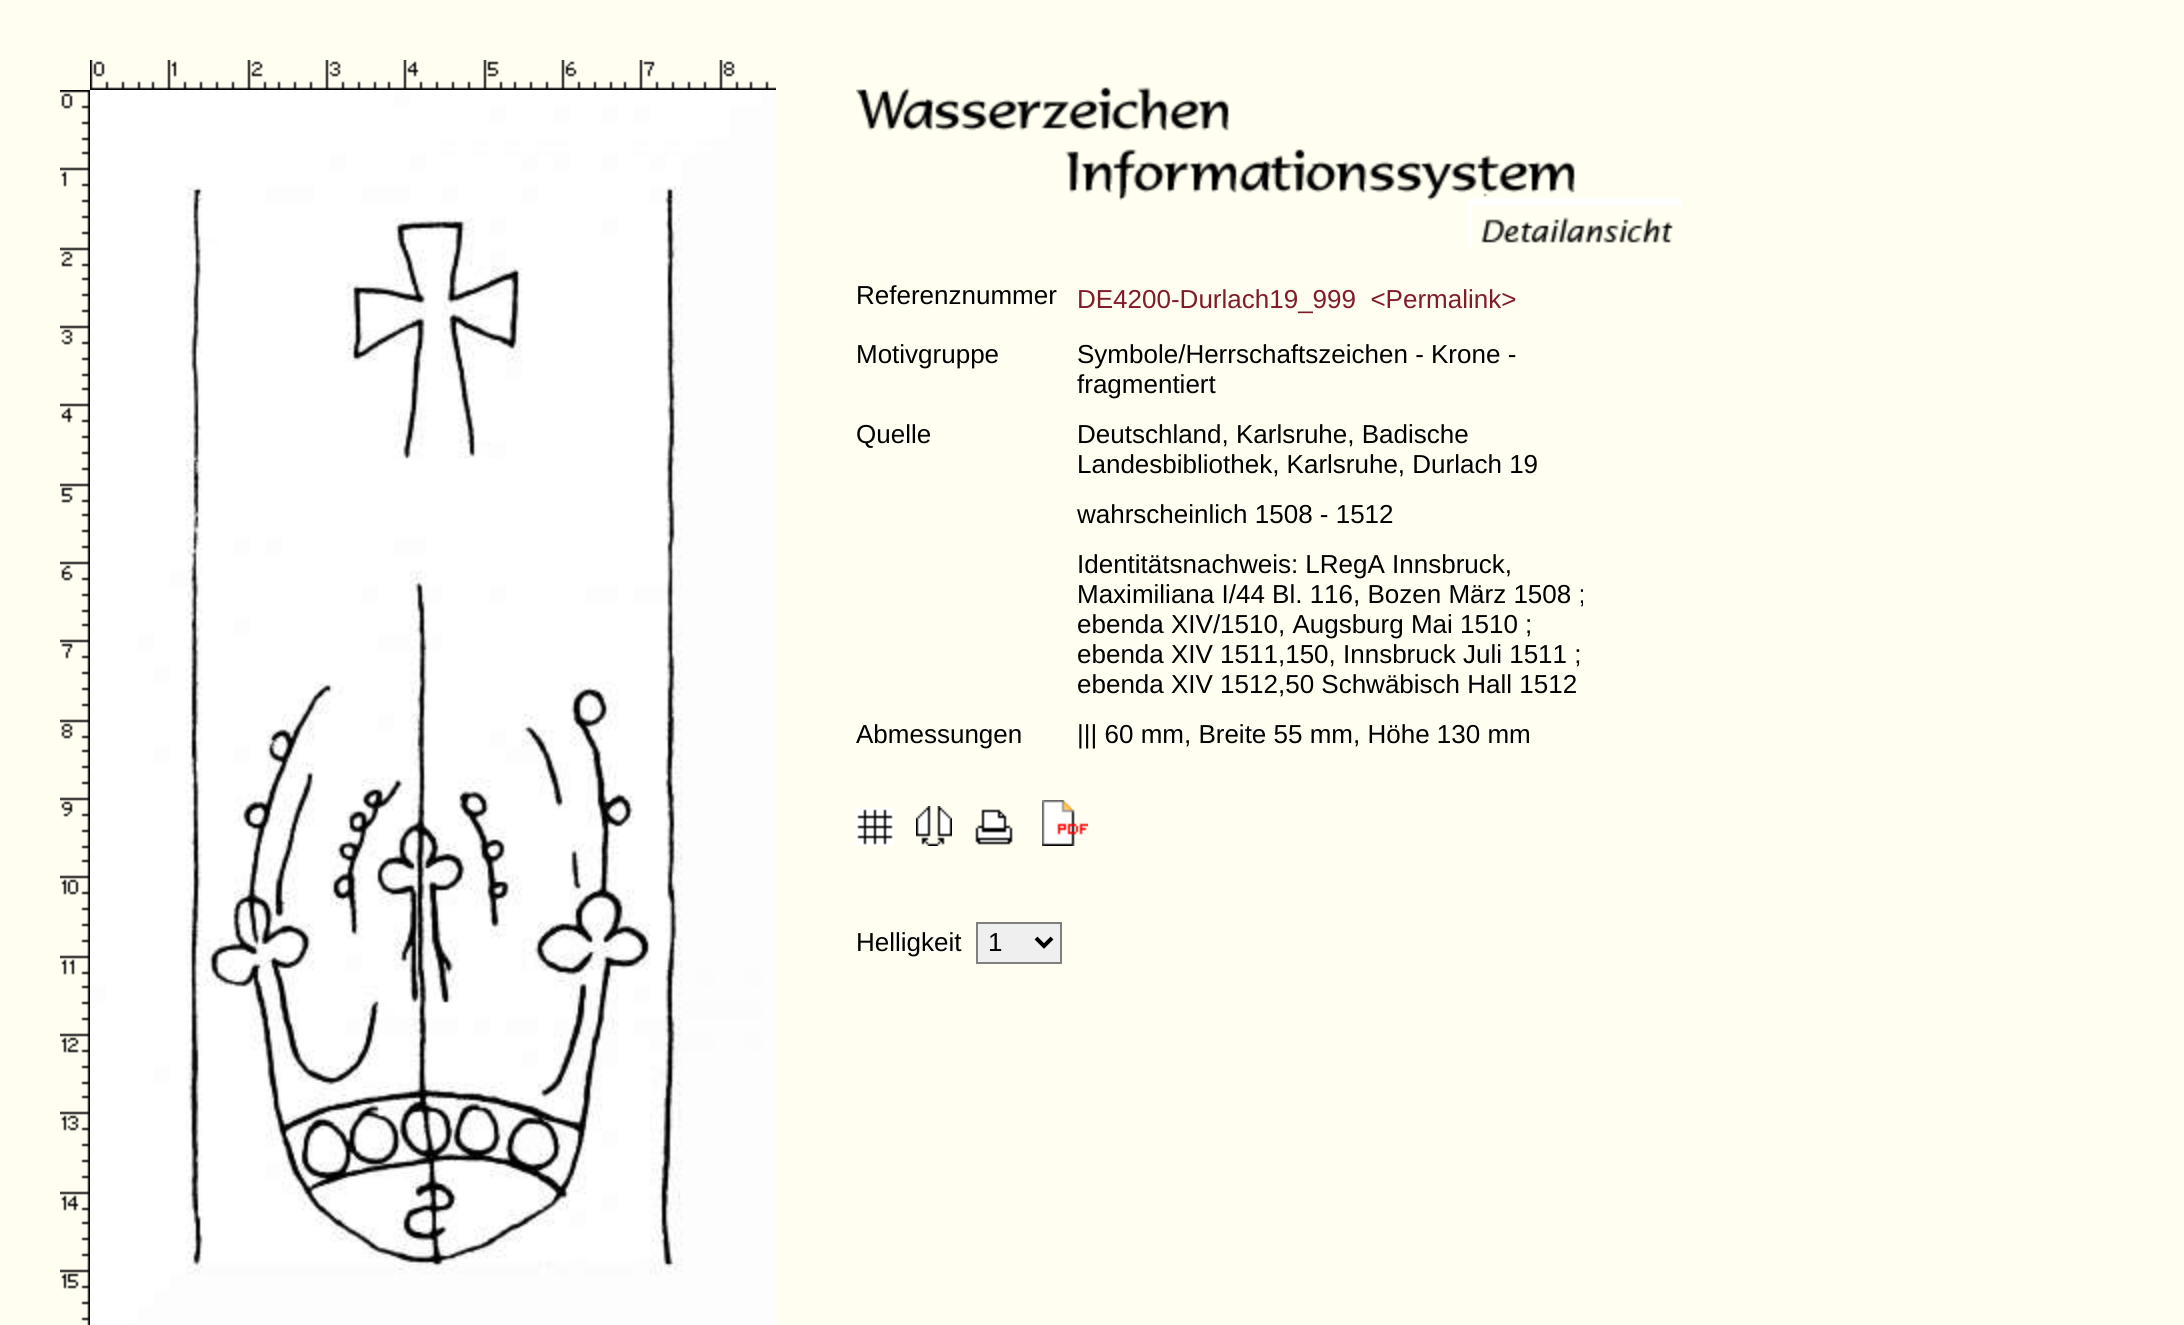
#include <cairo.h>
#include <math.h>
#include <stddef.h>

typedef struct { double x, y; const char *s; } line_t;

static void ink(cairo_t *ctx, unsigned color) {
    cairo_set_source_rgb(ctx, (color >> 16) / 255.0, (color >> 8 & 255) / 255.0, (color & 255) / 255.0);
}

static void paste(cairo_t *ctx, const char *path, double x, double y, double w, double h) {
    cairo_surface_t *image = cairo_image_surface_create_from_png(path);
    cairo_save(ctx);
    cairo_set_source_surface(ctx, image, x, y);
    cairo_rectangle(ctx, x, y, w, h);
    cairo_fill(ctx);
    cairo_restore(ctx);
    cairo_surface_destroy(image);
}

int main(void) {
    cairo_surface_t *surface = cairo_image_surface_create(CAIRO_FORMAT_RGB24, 2184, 1325);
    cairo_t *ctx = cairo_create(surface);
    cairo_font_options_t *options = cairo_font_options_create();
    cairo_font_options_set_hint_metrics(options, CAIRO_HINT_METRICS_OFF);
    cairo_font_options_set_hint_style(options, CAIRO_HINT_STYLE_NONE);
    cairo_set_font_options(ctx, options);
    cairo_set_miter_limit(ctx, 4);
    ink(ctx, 0xFFFEF1);
    cairo_paint(ctx);
    paste(ctx, "media/1.png", 90, 60, 686, 30);
    paste(ctx, "media/2.png", 60, 90, 30, 1235);
    paste(ctx, "media/3.png", 90, 90, 686, 1235);
    paste(ctx, "media/4.png", 856, 87, 826, 159);
    cairo_select_font_face(ctx, "Liberation Sans", CAIRO_FONT_SLANT_NORMAL, CAIRO_FONT_WEIGHT_NORMAL);
    cairo_set_font_size(ctx, 26);
    ink(ctx, 0x000000);
    cairo_move_to(ctx, 856, 304);
    cairo_show_text(ctx, "Referenznummer");
    ink(ctx, 0x811B27);
    cairo_move_to(ctx, 1077, 308);
    cairo_show_text(ctx, "DE4200-Durlach19_999  <Permalink>");
    ink(ctx, 0x000000);
    {
        static const line_t items[] = {
            {856, 363, "Motivgruppe"},
            {1077, 363, "Symbole/Herrschaftszeichen - Krone -"},
            {1077, 393, "fragmentiert"},
            {856, 443, "Quelle"},
            {1077, 443, "Deutschland, Karlsruhe, Badische"},
            {1077, 473, "Landesbibliothek, Karlsruhe, Durlach 19"},
            {1077, 523, "wahrscheinlich 1508 - 1512"},
            {1077, 573, "Identitätsnachweis: LRegA Innsbruck,"},
            {1077, 603, "Maximiliana I/44 Bl. 116, Bozen März 1508 ;"},
            {1077, 633, "ebenda XIV/1510, Augsburg Mai 1510 ;"},
            {1077, 663, "ebenda XIV 1511,150, Innsbruck Juli 1511 ;"},
            {1077, 693, "ebenda XIV 1512,50 Schwäbisch Hall 1512"},
            {856, 743, "Abmessungen"},
            {1077, 743, "||| 60 mm, Breite 55 mm, Höhe 130 mm"},
        };
        for (size_t i = 0; i < sizeof items / sizeof *items; i++) {
            cairo_move_to(ctx, items[i].x, items[i].y);
            cairo_show_text(ctx, items[i].s);
        }
    }
    paste(ctx, "media/5.png", 856, 808, 38, 38);
    paste(ctx, "media/6.png", 916, 806, 36, 40);
    paste(ctx, "media/7.png", 975, 809, 38, 36);
    paste(ctx, "media/8.png", 1042, 800, 46, 46);
    cairo_move_to(ctx, 856, 951);
    cairo_show_text(ctx, "Helligkeit");
    ink(ctx, 0xEFEFEF);
    cairo_rectangle(ctx, 977, 923, 84, 40);
    cairo_fill_preserve(ctx);
    ink(ctx, 0x808080);
    cairo_stroke(ctx);
    cairo_new_path(ctx);
    cairo_move_to(ctx, 1036, 938);
    cairo_line_to(ctx, 1044, 946);
    cairo_line_to(ctx, 1052, 938);
    ink(ctx, 0x000000);
    cairo_set_line_width(ctx, 4);
    cairo_stroke(ctx);
    cairo_move_to(ctx, 988, 951);
    cairo_show_text(ctx, "1");
    cairo_surface_write_to_png(surface, "image.png");
    cairo_font_options_destroy(options);
    cairo_destroy(ctx);
    cairo_surface_destroy(surface);
    return 0;
}
